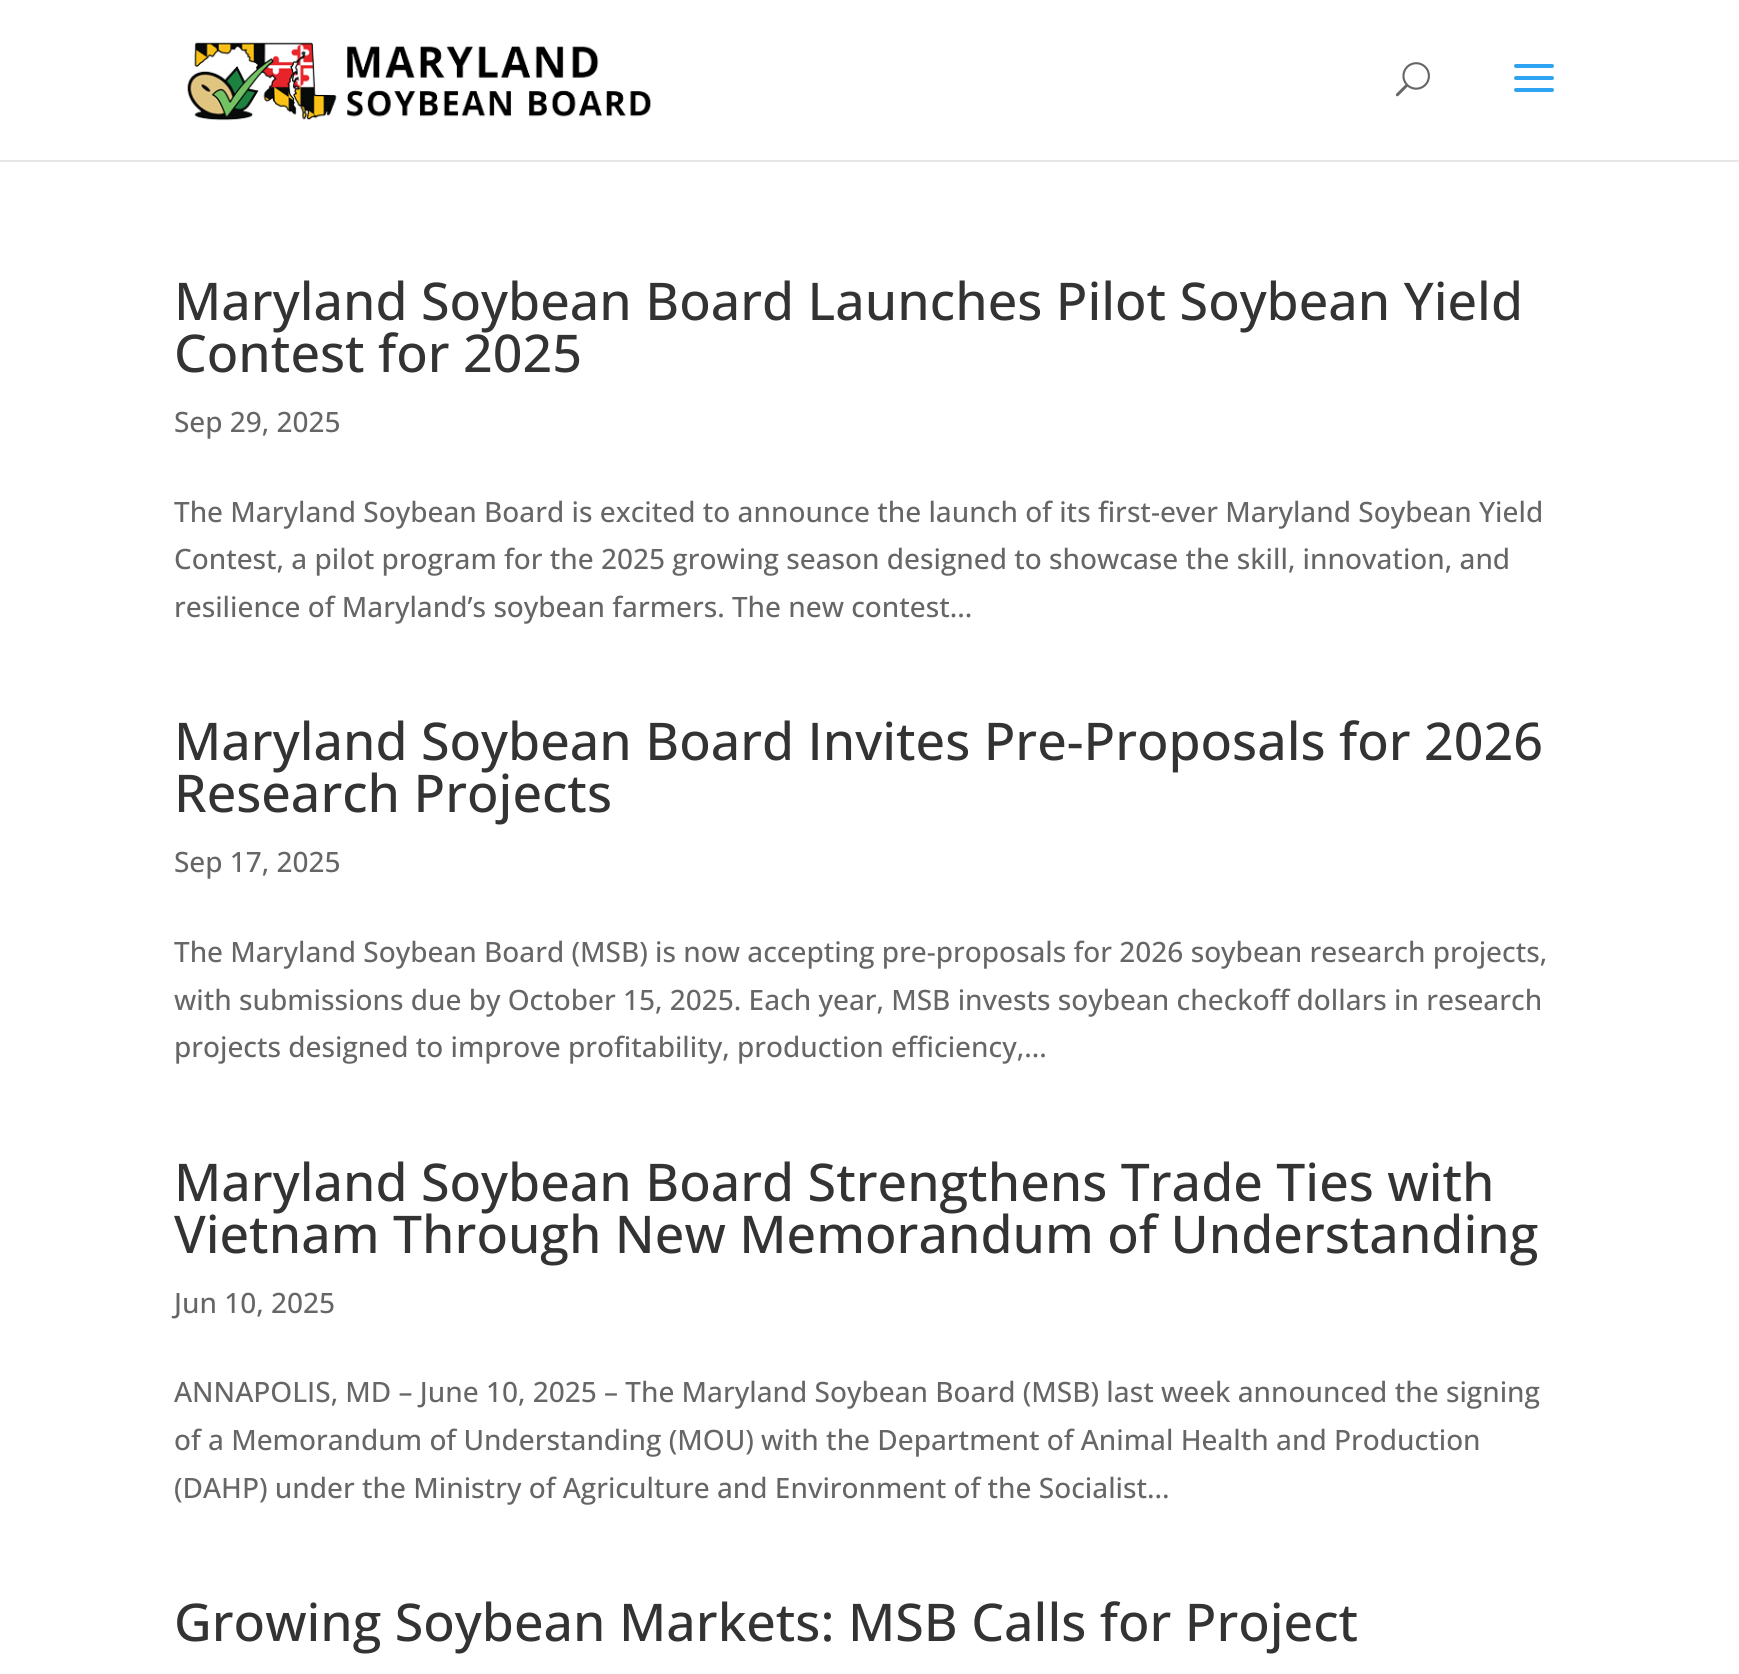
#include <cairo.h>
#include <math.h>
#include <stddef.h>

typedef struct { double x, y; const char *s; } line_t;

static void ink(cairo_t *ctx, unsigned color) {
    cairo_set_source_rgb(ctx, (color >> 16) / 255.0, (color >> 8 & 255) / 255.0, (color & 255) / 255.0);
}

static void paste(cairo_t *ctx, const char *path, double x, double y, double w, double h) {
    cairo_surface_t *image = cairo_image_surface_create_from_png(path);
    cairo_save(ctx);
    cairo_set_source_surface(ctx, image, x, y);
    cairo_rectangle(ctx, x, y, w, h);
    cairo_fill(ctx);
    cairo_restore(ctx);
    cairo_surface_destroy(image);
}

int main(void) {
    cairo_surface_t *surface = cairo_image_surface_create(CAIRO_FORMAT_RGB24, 1739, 1674);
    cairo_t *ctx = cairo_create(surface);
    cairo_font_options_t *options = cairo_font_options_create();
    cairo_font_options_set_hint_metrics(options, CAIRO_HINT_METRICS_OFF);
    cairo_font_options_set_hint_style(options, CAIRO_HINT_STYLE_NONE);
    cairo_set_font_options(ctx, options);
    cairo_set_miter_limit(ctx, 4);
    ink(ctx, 0xFFFFFF);
    cairo_paint(ctx);
    ink(ctx, 0xE6E6E6);
    cairo_rectangle(ctx, 0, 160, 1739, 2);
    cairo_fill(ctx);
    paste(ctx, "media/1.png", 187, 42, 464, 79);
    paste(ctx, "media/2.png", 1395, 62, 35, 35);
    paste(ctx, "media/3.png", 1514, 64, 40, 28);
    cairo_select_font_face(ctx, "Open Sans Medium", CAIRO_FONT_SLANT_NORMAL, CAIRO_FONT_WEIGHT_NORMAL);
    cairo_set_font_size(ctx, 52);
    ink(ctx, 0x333333);
    cairo_move_to(ctx, 174, 320);
    cairo_show_text(ctx, "Maryland Soybean Board Launches Pilot Soybean Yield");
    cairo_move_to(ctx, 174, 372);
    cairo_show_text(ctx, "Contest for 2025");
    cairo_set_font_size(ctx, 28);
    ink(ctx, 0x666666);
    {
        static const line_t items[] = {
            {174, 432, "Sep 29, 2025"},
            {174, 522, "The Maryland Soybean Board is excited to announce the launch of its first-ever Maryland Soybean Yield"},
            {174, 569, "Contest, a pilot program for the 2025 growing season designed to showcase the skill, innovation, and"},
            {174, 617, "resilience of Maryland’s soybean farmers. The new contest..."},
        };
        for (size_t i = 0; i < sizeof items / sizeof *items; i++) {
            cairo_move_to(ctx, items[i].x, items[i].y);
            cairo_show_text(ctx, items[i].s);
        }
    }
    cairo_set_font_size(ctx, 52);
    ink(ctx, 0x333333);
    cairo_move_to(ctx, 174, 760);
    cairo_show_text(ctx, "Maryland Soybean Board Invites Pre-Proposals for 2026");
    cairo_move_to(ctx, 174, 812);
    cairo_show_text(ctx, "Research Projects");
    cairo_set_font_size(ctx, 28);
    ink(ctx, 0x666666);
    {
        static const line_t items[] = {
            {174, 872, "Sep 17, 2025"},
            {174, 962, "The Maryland Soybean Board (MSB) is now accepting pre-proposals for 2026 soybean research projects,"},
            {174, 1010, "with submissions due by October 15, 2025. Each year, MSB invests soybean checkoff dollars in research"},
            {174, 1057, "projects designed to improve profitability, production efficiency,..."},
        };
        for (size_t i = 0; i < sizeof items / sizeof *items; i++) {
            cairo_move_to(ctx, items[i].x, items[i].y);
            cairo_show_text(ctx, items[i].s);
        }
    }
    cairo_set_font_size(ctx, 52);
    ink(ctx, 0x333333);
    cairo_move_to(ctx, 174, 1201);
    cairo_show_text(ctx, "Maryland Soybean Board Strengthens Trade Ties with");
    cairo_move_to(ctx, 174, 1253);
    cairo_show_text(ctx, "Vietnam Through New Memorandum of Understanding");
    cairo_set_font_size(ctx, 28);
    ink(ctx, 0x666666);
    {
        static const line_t items[] = {
            {174, 1313, "Jun 10, 2025"},
            {174, 1402, "ANNAPOLIS, MD – June 10, 2025 – The Maryland Soybean Board (MSB) last week announced the signing"},
            {174, 1450, "of a Memorandum of Understanding (MOU) with the Department of Animal Health and Production"},
            {174, 1498, "(DAHP) under the Ministry of Agriculture and Environment of the Socialist..."},
        };
        for (size_t i = 0; i < sizeof items / sizeof *items; i++) {
            cairo_move_to(ctx, items[i].x, items[i].y);
            cairo_show_text(ctx, items[i].s);
        }
    }
    cairo_set_font_size(ctx, 52);
    ink(ctx, 0x333333);
    cairo_move_to(ctx, 174, 1641);
    cairo_show_text(ctx, "Growing Soybean Markets: MSB Calls for Project");
    cairo_surface_write_to_png(surface, "image.png");
    cairo_font_options_destroy(options);
    cairo_destroy(ctx);
    cairo_surface_destroy(surface);
    return 0;
}
